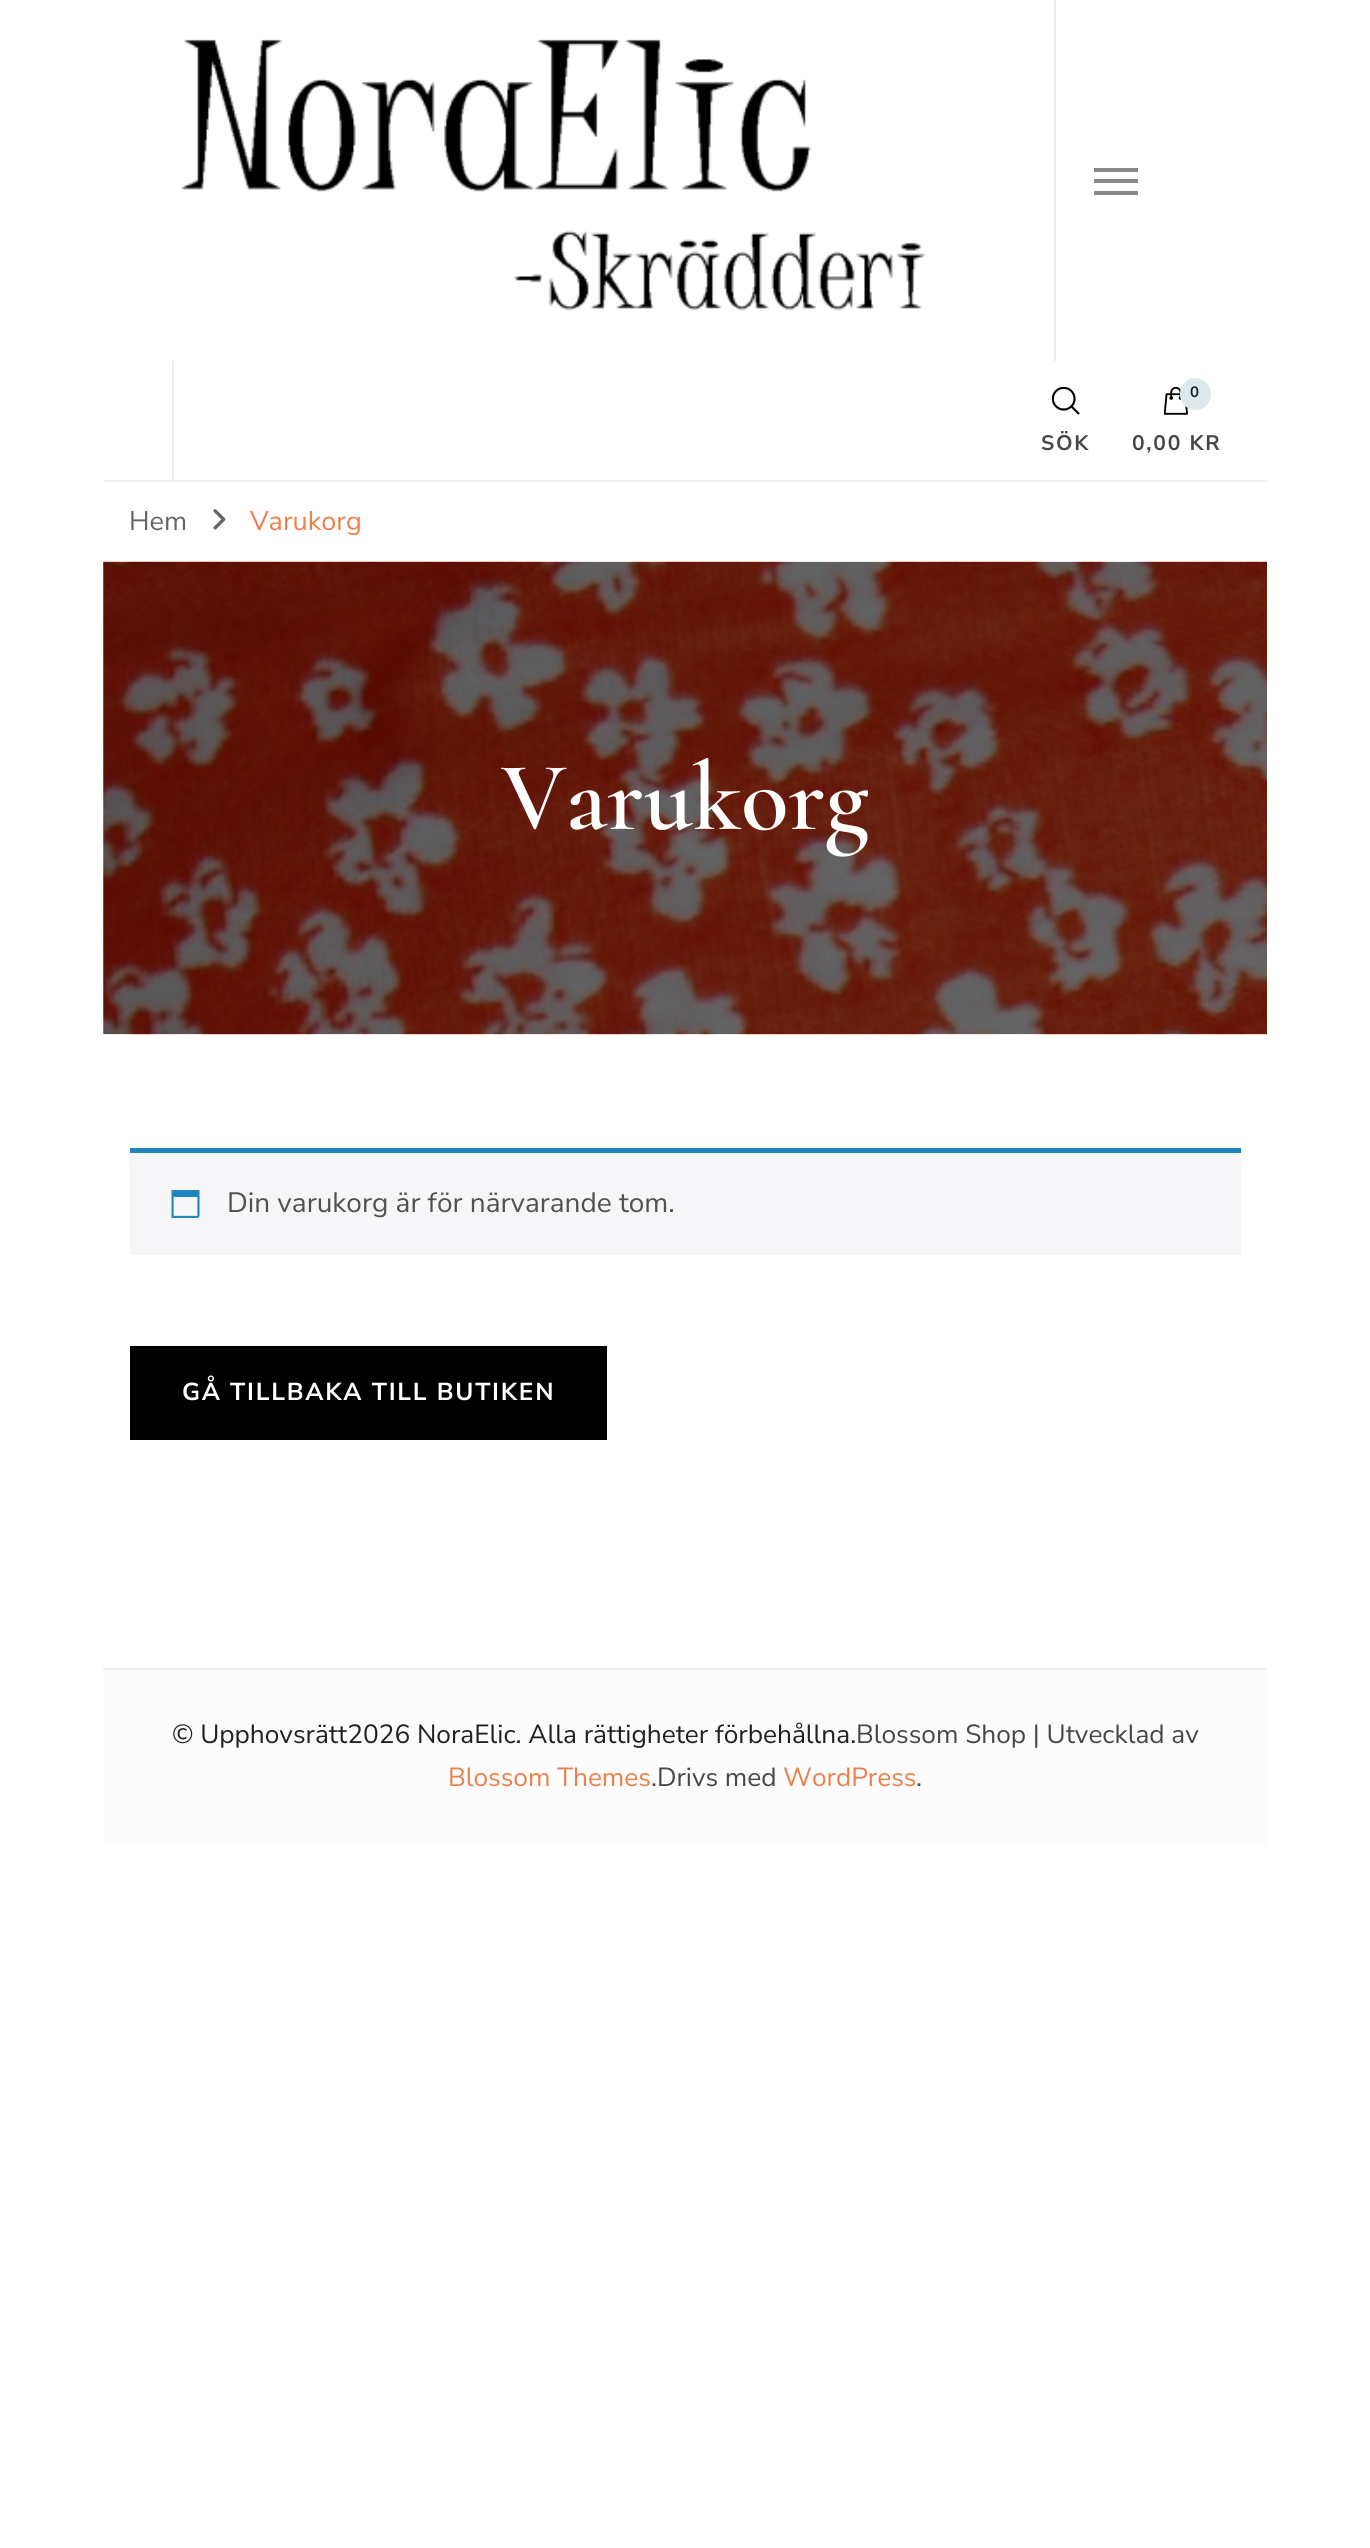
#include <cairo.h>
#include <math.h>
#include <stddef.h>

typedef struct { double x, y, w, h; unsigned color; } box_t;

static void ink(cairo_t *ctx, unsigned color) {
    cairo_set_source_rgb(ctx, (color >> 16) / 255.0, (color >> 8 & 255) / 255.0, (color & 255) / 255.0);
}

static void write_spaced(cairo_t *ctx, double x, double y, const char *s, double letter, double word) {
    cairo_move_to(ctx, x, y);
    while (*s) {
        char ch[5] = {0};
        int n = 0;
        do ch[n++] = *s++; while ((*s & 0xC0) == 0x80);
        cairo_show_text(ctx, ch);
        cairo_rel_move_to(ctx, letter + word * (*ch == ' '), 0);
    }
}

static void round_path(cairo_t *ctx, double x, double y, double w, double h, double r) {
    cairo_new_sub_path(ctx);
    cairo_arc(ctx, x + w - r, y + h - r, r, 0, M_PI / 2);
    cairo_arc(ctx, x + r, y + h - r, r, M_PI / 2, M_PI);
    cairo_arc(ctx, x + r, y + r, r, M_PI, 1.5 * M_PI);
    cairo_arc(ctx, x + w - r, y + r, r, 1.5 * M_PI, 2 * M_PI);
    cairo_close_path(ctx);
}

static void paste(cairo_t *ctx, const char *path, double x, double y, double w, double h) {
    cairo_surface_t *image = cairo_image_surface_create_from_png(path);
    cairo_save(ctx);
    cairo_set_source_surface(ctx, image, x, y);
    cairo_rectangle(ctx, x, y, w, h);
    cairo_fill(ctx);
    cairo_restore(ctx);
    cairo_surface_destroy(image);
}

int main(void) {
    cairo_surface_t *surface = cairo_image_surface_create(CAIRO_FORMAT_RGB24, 1370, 2548);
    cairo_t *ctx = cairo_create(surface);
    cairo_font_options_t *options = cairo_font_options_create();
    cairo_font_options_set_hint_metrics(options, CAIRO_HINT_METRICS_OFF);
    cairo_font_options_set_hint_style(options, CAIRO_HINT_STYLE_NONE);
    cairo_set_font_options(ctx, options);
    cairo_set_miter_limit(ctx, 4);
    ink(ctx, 0xFFFFFF);
    cairo_paint(ctx);
    ink(ctx, 0xF2F2F2);
    cairo_rectangle(ctx, 103, 480, 1164, 2);
    cairo_fill(ctx);
    ink(ctx, 0xEDEDED);
    cairo_rectangle(ctx, 1054, 0, 2, 361);
    cairo_fill(ctx);
    paste(ctx, "media/1.png", 181, 39, 745, 272);
    {
        static const box_t items[] = {
            {1094, 168, 44, 4, 0x888888},
            {1094, 179, 44, 4, 0x888888},
            {1094, 191, 44, 4, 0x888888},
            {172, 361, 2, 119, 0xEDEDED},
        };
        for (size_t i = 0; i < sizeof items / sizeof *items; i++) {
            ink(ctx, items[i].color);
            cairo_rectangle(ctx, items[i].x, items[i].y, items[i].w, items[i].h);
            cairo_fill(ctx);
        }
    }
    paste(ctx, "media/2.png", 1052, 387, 28, 28);
    cairo_select_font_face(ctx, "Nunito Sans", CAIRO_FONT_SLANT_NORMAL, CAIRO_FONT_WEIGHT_BOLD);
    cairo_set_font_size(ctx, 21);
    ink(ctx, 0x474747);
    write_spaced(ctx, 1041, 450, "SÖK", 1.75, 0);
    paste(ctx, "media/3.png", 1164, 387, 24, 28);
    ink(ctx, 0xDDE9ED);
    round_path(ctx, 1180, 378, 31, 32, 15.5);
    cairo_fill(ctx);
    cairo_set_font_size(ctx, 15);
    ink(ctx, 0x202020);
    write_spaced(ctx, 1190, 397, "0", 1.75, 0);
    cairo_set_font_size(ctx, 21);
    ink(ctx, 0x474747);
    write_spaced(ctx, 1132, 450, "0,00 KR", 1.75, 0);
    cairo_select_font_face(ctx, "Nunito Sans", CAIRO_FONT_SLANT_NORMAL, CAIRO_FONT_WEIGHT_NORMAL);
    cairo_set_font_size(ctx, 27);
    ink(ctx, 0x666666);
    cairo_move_to(ctx, 129, 530);
    cairo_show_text(ctx, "Hem");
    paste(ctx, "media/4.png", 213, 509, 13, 21);
    ink(ctx, 0xEE7F4B);
    cairo_move_to(ctx, 250, 530);
    cairo_show_text(ctx, "Varukorg");
    paste(ctx, "media/5.png", 103, 561, 1164, 474);
    cairo_select_font_face(ctx, "Cormorant SemiBold", CAIRO_FONT_SLANT_NORMAL, CAIRO_FONT_WEIGHT_NORMAL);
    cairo_set_font_size(ctx, 98);
    ink(ctx, 0xFFFFFF);
    cairo_move_to(ctx, 501, 829);
    cairo_show_text(ctx, "Varukorg");
    ink(ctx, 0xF6F5F8);
    cairo_rectangle(ctx, 130, 1153, 1111, 102);
    cairo_fill(ctx);
    ink(ctx, 0x1E85BE);
    cairo_rectangle(ctx, 130, 1148, 1111, 5);
    cairo_fill(ctx);
    paste(ctx, "media/6.png", 171, 1190, 29, 28);
    cairo_select_font_face(ctx, "Nunito Sans", CAIRO_FONT_SLANT_NORMAL, CAIRO_FONT_WEIGHT_NORMAL);
    cairo_set_font_size(ctx, 28);
    ink(ctx, 0x515151);
    cairo_move_to(ctx, 227, 1212);
    cairo_show_text(ctx, "Din varukorg är för närvarande tom.");
    ink(ctx, 0x000000);
    cairo_rectangle(ctx, 130, 1346, 477, 94);
    cairo_fill(ctx);
    cairo_select_font_face(ctx, "Nunito Sans", CAIRO_FONT_SLANT_NORMAL, CAIRO_FONT_WEIGHT_BOLD);
    cairo_set_font_size(ctx, 24.5);
    ink(ctx, 0xFFFFFF);
    write_spaced(ctx, 182, 1400, "GÅ TILLBAKA TILL BUTIKEN", 1.75, 0);
    ink(ctx, 0xFCFCFC);
    cairo_rectangle(ctx, 103, 1670, 1164, 175);
    cairo_fill(ctx);
    ink(ctx, 0xF0F1F2);
    cairo_rectangle(ctx, 103, 1668, 1164, 2);
    cairo_fill(ctx);
    cairo_select_font_face(ctx, "Nunito Sans", CAIRO_FONT_SLANT_NORMAL, CAIRO_FONT_WEIGHT_NORMAL);
    cairo_set_font_size(ctx, 26.25);
    ink(ctx, 0x202020);
    cairo_move_to(ctx, 172, 1743);
    cairo_show_text(ctx, "© Upphovsrätt2026 NoraElic. Alla rättigheter förbehållna.");
    ink(ctx, 0x474747);
    cairo_move_to(ctx, 856, 1743);
    cairo_show_text(ctx, "Blossom Shop | Utvecklad av");
    ink(ctx, 0xEE7F4B);
    cairo_move_to(ctx, 448, 1786);
    cairo_show_text(ctx, "Blossom Themes");
    ink(ctx, 0x474747);
    cairo_move_to(ctx, 651, 1786);
    cairo_show_text(ctx, ".Drivs med");
    ink(ctx, 0xEE7F4B);
    cairo_move_to(ctx, 783, 1786);
    cairo_show_text(ctx, "WordPress");
    ink(ctx, 0x474747);
    cairo_move_to(ctx, 916, 1786);
    cairo_show_text(ctx, ".");
    cairo_surface_write_to_png(surface, "image.png");
    cairo_font_options_destroy(options);
    cairo_destroy(ctx);
    cairo_surface_destroy(surface);
    return 0;
}
